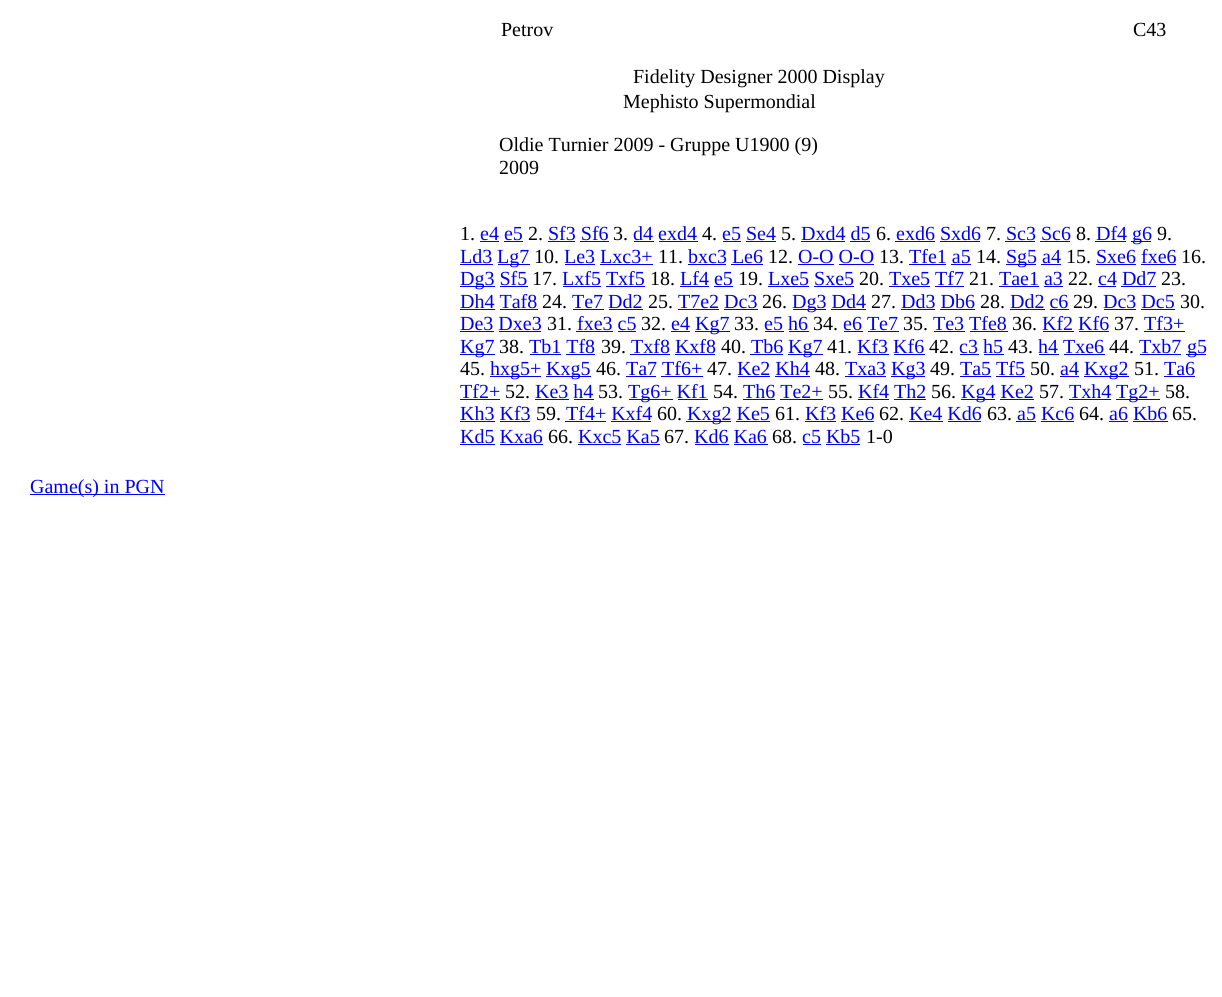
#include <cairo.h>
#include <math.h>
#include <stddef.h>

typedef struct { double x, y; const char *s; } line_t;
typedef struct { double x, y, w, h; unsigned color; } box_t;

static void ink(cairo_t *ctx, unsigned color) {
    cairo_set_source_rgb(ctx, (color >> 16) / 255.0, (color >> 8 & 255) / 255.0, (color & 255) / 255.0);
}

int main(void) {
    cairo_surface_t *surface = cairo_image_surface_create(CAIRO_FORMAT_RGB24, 1222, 997);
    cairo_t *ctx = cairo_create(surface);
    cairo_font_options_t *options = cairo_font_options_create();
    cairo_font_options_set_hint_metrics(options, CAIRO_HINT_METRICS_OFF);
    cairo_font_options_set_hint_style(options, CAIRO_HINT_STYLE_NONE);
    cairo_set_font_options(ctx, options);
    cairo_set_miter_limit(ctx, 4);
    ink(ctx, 0xFFFFFF);
    cairo_paint(ctx);
    cairo_select_font_face(ctx, "Liberation Serif", CAIRO_FONT_SLANT_NORMAL, CAIRO_FONT_WEIGHT_NORMAL);
    cairo_set_font_size(ctx, 20);
    ink(ctx, 0x000000);
    {
        static const line_t items[] = {
            {501, 36, "Petrov"},
            {1133, 36, "C43"},
            {633, 83, "Fidelity Designer 2000 Display"},
            {623, 108, "Mephisto Supermondial"},
            {499, 151, "Oldie Turnier 2009 - Gruppe U1900 (9)"},
            {499, 174, "2009"},
            {460, 240, "1."},
        };
        for (size_t i = 0; i < sizeof items / sizeof *items; i++) {
            cairo_move_to(ctx, items[i].x, items[i].y);
            cairo_show_text(ctx, items[i].s);
        }
    }
    ink(ctx, 0x0000EE);
    cairo_move_to(ctx, 480, 240);
    cairo_show_text(ctx, "e4 e5");
    cairo_rectangle(ctx, 480, 241, 19, 1);
    cairo_fill(ctx);
    ink(ctx, 0x000000);
    cairo_move_to(ctx, 528, 240);
    cairo_show_text(ctx, "2.");
    ink(ctx, 0x0000EE);
    cairo_move_to(ctx, 548, 240);
    cairo_show_text(ctx, "Sf3 Sf6");
    cairo_rectangle(ctx, 548, 241, 27, 1);
    cairo_fill(ctx);
    ink(ctx, 0x000000);
    cairo_move_to(ctx, 613, 240);
    cairo_show_text(ctx, "3.");
    ink(ctx, 0x0000EE);
    cairo_move_to(ctx, 633, 240);
    cairo_show_text(ctx, "d4 exd4");
    cairo_rectangle(ctx, 634, 241, 20, 1);
    cairo_fill(ctx);
    ink(ctx, 0x000000);
    cairo_move_to(ctx, 702, 240);
    cairo_show_text(ctx, "4.");
    ink(ctx, 0x0000EE);
    cairo_move_to(ctx, 722, 240);
    cairo_show_text(ctx, "e5 Se4");
    cairo_rectangle(ctx, 723, 241, 18, 1);
    cairo_fill(ctx);
    ink(ctx, 0x000000);
    cairo_move_to(ctx, 781, 240);
    cairo_show_text(ctx, "5.");
    ink(ctx, 0x0000EE);
    cairo_move_to(ctx, 801, 240);
    cairo_show_text(ctx, "Dxd4 d5");
    cairo_rectangle(ctx, 801, 241, 44, 1);
    cairo_fill(ctx);
    ink(ctx, 0x000000);
    cairo_move_to(ctx, 876, 240);
    cairo_show_text(ctx, "6.");
    ink(ctx, 0x0000EE);
    cairo_move_to(ctx, 896, 240);
    cairo_show_text(ctx, "exd6 Sxd6");
    cairo_rectangle(ctx, 895, 241, 40, 1);
    cairo_fill(ctx);
    ink(ctx, 0x000000);
    cairo_move_to(ctx, 986, 240);
    cairo_show_text(ctx, "7.");
    ink(ctx, 0x0000EE);
    cairo_move_to(ctx, 1006, 240);
    cairo_show_text(ctx, "Sc3 Sc6");
    cairo_rectangle(ctx, 1005, 241, 30, 1);
    cairo_fill(ctx);
    ink(ctx, 0x000000);
    cairo_move_to(ctx, 1076, 240);
    cairo_show_text(ctx, "8.");
    ink(ctx, 0x0000EE);
    cairo_move_to(ctx, 1096, 240);
    cairo_show_text(ctx, "Df4");
    cairo_rectangle(ctx, 1095, 241, 31, 1);
    cairo_fill(ctx);
    cairo_rectangle(ctx, 1131, 241, 20, 1);
    cairo_fill(ctx);
    cairo_move_to(ctx, 1132, 240);
    cairo_show_text(ctx, "g6");
    ink(ctx, 0x000000);
    cairo_move_to(ctx, 1157, 240);
    cairo_show_text(ctx, "9.");
    {
        static const box_t items[] = {
            {504, 241, 19, 1, 0x0000EE},
            {580, 241, 29, 1, 0x0000EE},
            {659, 241, 39, 1, 0x0000EE},
            {746, 241, 30, 1, 0x0000EE},
            {850, 241, 20, 1, 0x0000EE},
            {940, 241, 40, 1, 0x0000EE},
            {1040, 241, 30, 1, 0x0000EE},
        };
        for (size_t i = 0; i < sizeof items / sizeof *items; i++) {
            ink(ctx, items[i].color);
            cairo_rectangle(ctx, items[i].x, items[i].y, items[i].w, items[i].h);
            cairo_fill(ctx);
        }
    }
    cairo_move_to(ctx, 460, 263);
    cairo_show_text(ctx, "Ld3");
    cairo_rectangle(ctx, 460, 264, 33, 1);
    cairo_fill(ctx);
    cairo_rectangle(ctx, 498, 264, 32, 1);
    cairo_fill(ctx);
    cairo_move_to(ctx, 497, 263);
    cairo_show_text(ctx, "Lg7");
    ink(ctx, 0x000000);
    cairo_move_to(ctx, 534, 263);
    cairo_show_text(ctx, "10.");
    ink(ctx, 0x0000EE);
    cairo_move_to(ctx, 564, 263);
    cairo_show_text(ctx, "Le3 Lxc3+");
    cairo_rectangle(ctx, 565, 264, 30, 1);
    cairo_fill(ctx);
    ink(ctx, 0x000000);
    cairo_move_to(ctx, 658, 263);
    cairo_show_text(ctx, "11.");
    ink(ctx, 0x0000EE);
    cairo_move_to(ctx, 688, 263);
    cairo_show_text(ctx, "bxc3 Le6");
    cairo_rectangle(ctx, 688, 264, 38, 1);
    cairo_fill(ctx);
    ink(ctx, 0x000000);
    cairo_move_to(ctx, 768, 263);
    cairo_show_text(ctx, "12.");
    ink(ctx, 0x0000EE);
    cairo_move_to(ctx, 798, 263);
    cairo_show_text(ctx, "O-O O-O");
    cairo_rectangle(ctx, 798, 264, 36, 1);
    cairo_fill(ctx);
    ink(ctx, 0x000000);
    cairo_move_to(ctx, 879, 263);
    cairo_show_text(ctx, "13.");
    ink(ctx, 0x0000EE);
    cairo_move_to(ctx, 909, 263);
    cairo_show_text(ctx, "Tfe1 a5");
    cairo_rectangle(ctx, 909, 264, 37, 1);
    cairo_fill(ctx);
    ink(ctx, 0x000000);
    cairo_move_to(ctx, 976, 263);
    cairo_show_text(ctx, "14.");
    ink(ctx, 0x0000EE);
    cairo_rectangle(ctx, 1006, 264, 30, 1);
    cairo_fill(ctx);
    cairo_move_to(ctx, 1006, 263);
    cairo_show_text(ctx, "Sg5 a4");
    ink(ctx, 0x000000);
    cairo_move_to(ctx, 1066, 263);
    cairo_show_text(ctx, "15.");
    ink(ctx, 0x0000EE);
    cairo_move_to(ctx, 1096, 263);
    cairo_show_text(ctx, "Sxe6 fxe6");
    cairo_rectangle(ctx, 1096, 264, 40, 1);
    cairo_fill(ctx);
    ink(ctx, 0x000000);
    cairo_move_to(ctx, 1181, 263);
    cairo_show_text(ctx, "16.");
    {
        static const box_t items[] = {
            {600, 264, 53, 1, 0x0000EE},
            {731, 264, 32, 1, 0x0000EE},
            {839, 264, 35, 1, 0x0000EE},
            {951, 264, 20, 1, 0x0000EE},
            {1041, 264, 20, 1, 0x0000EE},
            {1141, 264, 35, 1, 0x0000EE},
            {460, 286, 35, 1, 0x0000EE},
        };
        for (size_t i = 0; i < sizeof items / sizeof *items; i++) {
            ink(ctx, items[i].color);
            cairo_rectangle(ctx, items[i].x, items[i].y, items[i].w, items[i].h);
            cairo_fill(ctx);
        }
    }
    cairo_move_to(ctx, 460, 285);
    cairo_show_text(ctx, "Dg3 Sf5");
    ink(ctx, 0x000000);
    cairo_move_to(ctx, 532, 285);
    cairo_show_text(ctx, "17.");
    ink(ctx, 0x0000EE);
    cairo_move_to(ctx, 562, 285);
    cairo_show_text(ctx, "Lxf5 Txf5");
    cairo_rectangle(ctx, 563, 286, 38, 1);
    cairo_fill(ctx);
    ink(ctx, 0x000000);
    cairo_move_to(ctx, 650, 285);
    cairo_show_text(ctx, "18.");
    ink(ctx, 0x0000EE);
    cairo_move_to(ctx, 680, 285);
    cairo_show_text(ctx, "Lf4 e5");
    cairo_rectangle(ctx, 680, 286, 29, 1);
    cairo_fill(ctx);
    ink(ctx, 0x000000);
    cairo_move_to(ctx, 738, 285);
    cairo_show_text(ctx, "19.");
    ink(ctx, 0x0000EE);
    cairo_move_to(ctx, 768, 285);
    cairo_show_text(ctx, "Lxe5 Sxe5");
    cairo_rectangle(ctx, 768, 286, 41, 1);
    cairo_fill(ctx);
    ink(ctx, 0x000000);
    cairo_move_to(ctx, 859, 285);
    cairo_show_text(ctx, "20.");
    ink(ctx, 0x0000EE);
    cairo_move_to(ctx, 889, 285);
    cairo_show_text(ctx, "Txe5 Tf7");
    cairo_rectangle(ctx, 889, 286, 41, 1);
    cairo_fill(ctx);
    ink(ctx, 0x000000);
    cairo_move_to(ctx, 969, 285);
    cairo_show_text(ctx, "21.");
    ink(ctx, 0x0000EE);
    cairo_move_to(ctx, 999, 285);
    cairo_show_text(ctx, "Tae1 a3");
    cairo_rectangle(ctx, 999, 286, 40, 1);
    cairo_fill(ctx);
    ink(ctx, 0x000000);
    cairo_move_to(ctx, 1068, 285);
    cairo_show_text(ctx, "22.");
    ink(ctx, 0x0000EE);
    cairo_move_to(ctx, 1098, 285);
    cairo_show_text(ctx, "c4 Dd7");
    cairo_rectangle(ctx, 1098, 286, 18, 1);
    cairo_fill(ctx);
    ink(ctx, 0x000000);
    cairo_move_to(ctx, 1161, 285);
    cairo_show_text(ctx, "23.");
    {
        static const box_t items[] = {
            {500, 286, 28, 1, 0x0000EE},
            {606, 286, 39, 1, 0x0000EE},
            {714, 286, 19, 1, 0x0000EE},
            {814, 286, 40, 1, 0x0000EE},
            {935, 286, 29, 1, 0x0000EE},
            {1044, 286, 19, 1, 0x0000EE},
            {1121, 286, 35, 1, 0x0000EE},
        };
        for (size_t i = 0; i < sizeof items / sizeof *items; i++) {
            ink(ctx, items[i].color);
            cairo_rectangle(ctx, items[i].x, items[i].y, items[i].w, items[i].h);
            cairo_fill(ctx);
        }
    }
    cairo_move_to(ctx, 460, 308);
    cairo_show_text(ctx, "Dh4 Taf8");
    cairo_rectangle(ctx, 460, 309, 35, 1);
    cairo_fill(ctx);
    ink(ctx, 0x000000);
    cairo_move_to(ctx, 542, 308);
    cairo_show_text(ctx, "24.");
    ink(ctx, 0x0000EE);
    cairo_move_to(ctx, 572, 308);
    cairo_show_text(ctx, "Te7 Dd2");
    cairo_rectangle(ctx, 573, 309, 31, 1);
    cairo_fill(ctx);
    ink(ctx, 0x000000);
    cairo_move_to(ctx, 648, 308);
    cairo_show_text(ctx, "25.");
    ink(ctx, 0x0000EE);
    cairo_move_to(ctx, 678, 308);
    cairo_show_text(ctx, "T7e2 Dc3");
    cairo_rectangle(ctx, 678, 309, 41, 1);
    cairo_fill(ctx);
    ink(ctx, 0x000000);
    cairo_move_to(ctx, 762, 308);
    cairo_show_text(ctx, "26.");
    ink(ctx, 0x0000EE);
    cairo_rectangle(ctx, 793, 309, 33, 1);
    cairo_fill(ctx);
    cairo_move_to(ctx, 792, 308);
    cairo_show_text(ctx, "Dg3 Dd4");
    ink(ctx, 0x000000);
    cairo_move_to(ctx, 871, 308);
    cairo_show_text(ctx, "27.");
    ink(ctx, 0x0000EE);
    cairo_move_to(ctx, 901, 308);
    cairo_show_text(ctx, "Dd3 Db6");
    cairo_rectangle(ctx, 901, 309, 34, 1);
    cairo_fill(ctx);
    ink(ctx, 0x000000);
    cairo_move_to(ctx, 980, 308);
    cairo_show_text(ctx, "28.");
    ink(ctx, 0x0000EE);
    cairo_move_to(ctx, 1010, 308);
    cairo_show_text(ctx, "Dd2 c6");
    cairo_rectangle(ctx, 1010, 309, 35, 1);
    cairo_fill(ctx);
    ink(ctx, 0x000000);
    cairo_move_to(ctx, 1073, 308);
    cairo_show_text(ctx, "29.");
    ink(ctx, 0x0000EE);
    cairo_move_to(ctx, 1103, 308);
    cairo_show_text(ctx, "Dc3 Dc5");
    cairo_rectangle(ctx, 1104, 309, 32, 1);
    cairo_fill(ctx);
    ink(ctx, 0x000000);
    cairo_move_to(ctx, 1180, 308);
    cairo_show_text(ctx, "30.");
    {
        static const box_t items[] = {
            {500, 309, 38, 1, 0x0000EE},
            {609, 309, 34, 1, 0x0000EE},
            {724, 309, 34, 1, 0x0000EE},
            {831, 309, 35, 1, 0x0000EE},
            {940, 309, 35, 1, 0x0000EE},
            {1050, 309, 19, 1, 0x0000EE},
            {1141, 309, 34, 1, 0x0000EE},
        };
        for (size_t i = 0; i < sizeof items / sizeof *items; i++) {
            ink(ctx, items[i].color);
            cairo_rectangle(ctx, items[i].x, items[i].y, items[i].w, items[i].h);
            cairo_fill(ctx);
        }
    }
    cairo_move_to(ctx, 460, 330);
    cairo_show_text(ctx, "De3 Dxe3");
    cairo_rectangle(ctx, 460, 331, 34, 1);
    cairo_fill(ctx);
    ink(ctx, 0x000000);
    cairo_move_to(ctx, 547, 330);
    cairo_show_text(ctx, "31.");
    ink(ctx, 0x0000EE);
    cairo_move_to(ctx, 577, 330);
    cairo_show_text(ctx, "fxe3 c5");
    cairo_rectangle(ctx, 576, 331, 37, 1);
    cairo_fill(ctx);
    ink(ctx, 0x000000);
    cairo_move_to(ctx, 641, 330);
    cairo_show_text(ctx, "32.");
    ink(ctx, 0x0000EE);
    cairo_move_to(ctx, 671, 330);
    cairo_show_text(ctx, "e4");
    cairo_rectangle(ctx, 671, 331, 19, 1);
    cairo_fill(ctx);
    cairo_rectangle(ctx, 695, 331, 35, 1);
    cairo_fill(ctx);
    cairo_move_to(ctx, 695, 330);
    cairo_show_text(ctx, "Kg7");
    ink(ctx, 0x000000);
    cairo_move_to(ctx, 734, 330);
    cairo_show_text(ctx, "33.");
    ink(ctx, 0x0000EE);
    cairo_move_to(ctx, 764, 330);
    cairo_show_text(ctx, "e5 h6");
    cairo_rectangle(ctx, 765, 331, 19, 1);
    cairo_fill(ctx);
    ink(ctx, 0x000000);
    cairo_move_to(ctx, 813, 330);
    cairo_show_text(ctx, "34.");
    ink(ctx, 0x0000EE);
    cairo_move_to(ctx, 843, 330);
    cairo_show_text(ctx, "e6 Te7");
    cairo_rectangle(ctx, 844, 331, 19, 1);
    cairo_fill(ctx);
    ink(ctx, 0x000000);
    cairo_move_to(ctx, 903, 330);
    cairo_show_text(ctx, "35.");
    ink(ctx, 0x0000EE);
    cairo_move_to(ctx, 933, 330);
    cairo_show_text(ctx, "Te3 Tfe8");
    cairo_rectangle(ctx, 934, 331, 31, 1);
    cairo_fill(ctx);
    ink(ctx, 0x000000);
    cairo_move_to(ctx, 1012, 330);
    cairo_show_text(ctx, "36.");
    ink(ctx, 0x0000EE);
    cairo_move_to(ctx, 1042, 330);
    cairo_show_text(ctx, "Kf2 Kf6");
    cairo_rectangle(ctx, 1043, 331, 31, 1);
    cairo_fill(ctx);
    ink(ctx, 0x000000);
    cairo_move_to(ctx, 1114, 330);
    cairo_show_text(ctx, "37.");
    ink(ctx, 0x0000EE);
    cairo_move_to(ctx, 1144, 330);
    cairo_show_text(ctx, "Tf3+");
    {
        static const box_t items[] = {
            {1144, 331, 41, 1, 0x0000EE},
            {499, 331, 42, 1, 0x0000EE},
            {618, 331, 18, 1, 0x0000EE},
            {789, 331, 20, 1, 0x0000EE},
            {868, 331, 31, 1, 0x0000EE},
            {970, 331, 38, 1, 0x0000EE},
            {1079, 331, 30, 1, 0x0000EE},
            {460, 354, 35, 1, 0x0000EE},
        };
        for (size_t i = 0; i < sizeof items / sizeof *items; i++) {
            ink(ctx, items[i].color);
            cairo_rectangle(ctx, items[i].x, items[i].y, items[i].w, items[i].h);
            cairo_fill(ctx);
        }
    }
    cairo_move_to(ctx, 460, 353);
    cairo_show_text(ctx, "Kg7");
    ink(ctx, 0x000000);
    cairo_move_to(ctx, 499, 353);
    cairo_show_text(ctx, "38.");
    ink(ctx, 0x0000EE);
    cairo_move_to(ctx, 529, 353);
    cairo_show_text(ctx, "Tb1 Tf8");
    cairo_rectangle(ctx, 530, 354, 31, 1);
    cairo_fill(ctx);
    ink(ctx, 0x000000);
    cairo_move_to(ctx, 601, 353);
    cairo_show_text(ctx, "39.");
    ink(ctx, 0x0000EE);
    cairo_move_to(ctx, 631, 353);
    cairo_show_text(ctx, "Txf8 Kxf8");
    cairo_rectangle(ctx, 630, 354, 40, 1);
    cairo_fill(ctx);
    ink(ctx, 0x000000);
    cairo_move_to(ctx, 721, 353);
    cairo_show_text(ctx, "40.");
    ink(ctx, 0x0000EE);
    cairo_move_to(ctx, 751, 353);
    cairo_show_text(ctx, "Tb6");
    cairo_rectangle(ctx, 750, 354, 33, 1);
    cairo_fill(ctx);
    cairo_rectangle(ctx, 788, 354, 35, 1);
    cairo_fill(ctx);
    cairo_move_to(ctx, 788, 353);
    cairo_show_text(ctx, "Kg7");
    ink(ctx, 0x000000);
    cairo_move_to(ctx, 827, 353);
    cairo_show_text(ctx, "41.");
    ink(ctx, 0x0000EE);
    cairo_move_to(ctx, 857, 353);
    cairo_show_text(ctx, "Kf3 Kf6");
    cairo_rectangle(ctx, 858, 354, 31, 1);
    cairo_fill(ctx);
    ink(ctx, 0x000000);
    cairo_move_to(ctx, 929, 353);
    cairo_show_text(ctx, "42.");
    ink(ctx, 0x0000EE);
    cairo_move_to(ctx, 959, 353);
    cairo_show_text(ctx, "c3 h5");
    cairo_rectangle(ctx, 960, 354, 19, 1);
    cairo_fill(ctx);
    ink(ctx, 0x000000);
    cairo_move_to(ctx, 1008, 353);
    cairo_show_text(ctx, "43.");
    ink(ctx, 0x0000EE);
    cairo_move_to(ctx, 1038, 353);
    cairo_show_text(ctx, "h4 Txe6");
    cairo_rectangle(ctx, 1039, 354, 20, 1);
    cairo_fill(ctx);
    ink(ctx, 0x000000);
    cairo_move_to(ctx, 1109, 353);
    cairo_show_text(ctx, "44.");
    ink(ctx, 0x0000EE);
    cairo_move_to(ctx, 1139, 353);
    cairo_show_text(ctx, "Txb7");
    cairo_rectangle(ctx, 1140, 354, 41, 1);
    cairo_fill(ctx);
    cairo_rectangle(ctx, 1186, 354, 20, 1);
    cairo_fill(ctx);
    cairo_move_to(ctx, 1187, 353);
    cairo_show_text(ctx, "g5");
    {
        static const box_t items[] = {
            {566, 354, 29, 1, 0x0000EE},
            {675, 354, 40, 1, 0x0000EE},
            {894, 354, 31, 1, 0x0000EE},
            {984, 354, 20, 1, 0x0000EE},
            {1064, 354, 41, 1, 0x0000EE},
        };
        for (size_t i = 0; i < sizeof items / sizeof *items; i++) {
            ink(ctx, items[i].color);
            cairo_rectangle(ctx, items[i].x, items[i].y, items[i].w, items[i].h);
            cairo_fill(ctx);
        }
    }
    ink(ctx, 0x000000);
    cairo_move_to(ctx, 460, 375);
    cairo_show_text(ctx, "45.");
    ink(ctx, 0x0000EE);
    cairo_rectangle(ctx, 490, 376, 51, 1);
    cairo_fill(ctx);
    cairo_move_to(ctx, 490, 375);
    cairo_show_text(ctx, "hxg5+");
    cairo_rectangle(ctx, 546, 376, 45, 1);
    cairo_fill(ctx);
    cairo_move_to(ctx, 546, 375);
    cairo_show_text(ctx, "Kxg5");
    ink(ctx, 0x000000);
    cairo_move_to(ctx, 596, 375);
    cairo_show_text(ctx, "46.");
    ink(ctx, 0x0000EE);
    cairo_move_to(ctx, 626, 375);
    cairo_show_text(ctx, "Ta7 Tf6+");
    cairo_rectangle(ctx, 626, 376, 30, 1);
    cairo_fill(ctx);
    ink(ctx, 0x000000);
    cairo_move_to(ctx, 707, 375);
    cairo_show_text(ctx, "47.");
    ink(ctx, 0x0000EE);
    cairo_move_to(ctx, 737, 375);
    cairo_show_text(ctx, "Ke2 Kh4");
    cairo_rectangle(ctx, 738, 376, 32, 1);
    cairo_fill(ctx);
    ink(ctx, 0x000000);
    cairo_move_to(ctx, 815, 375);
    cairo_show_text(ctx, "48.");
    ink(ctx, 0x0000EE);
    cairo_move_to(ctx, 845, 375);
    cairo_show_text(ctx, "Txa3");
    cairo_rectangle(ctx, 845, 376, 41, 1);
    cairo_fill(ctx);
    cairo_rectangle(ctx, 891, 376, 34, 1);
    cairo_fill(ctx);
    cairo_move_to(ctx, 891, 375);
    cairo_show_text(ctx, "Kg3");
    ink(ctx, 0x000000);
    cairo_move_to(ctx, 930, 375);
    cairo_show_text(ctx, "49.");
    ink(ctx, 0x0000EE);
    cairo_move_to(ctx, 960, 375);
    cairo_show_text(ctx, "Ta5 Tf5");
    cairo_rectangle(ctx, 960, 376, 31, 1);
    cairo_fill(ctx);
    ink(ctx, 0x000000);
    cairo_move_to(ctx, 1030, 375);
    cairo_show_text(ctx, "50.");
    ink(ctx, 0x0000EE);
    cairo_move_to(ctx, 1060, 375);
    cairo_show_text(ctx, "a4");
    cairo_rectangle(ctx, 1060, 376, 19, 1);
    cairo_fill(ctx);
    cairo_rectangle(ctx, 1084, 376, 45, 1);
    cairo_fill(ctx);
    cairo_move_to(ctx, 1084, 375);
    cairo_show_text(ctx, "Kxg2");
    ink(ctx, 0x000000);
    cairo_move_to(ctx, 1134, 375);
    cairo_show_text(ctx, "51.");
    ink(ctx, 0x0000EE);
    cairo_move_to(ctx, 1164, 375);
    cairo_show_text(ctx, "Ta6");
    {
        static const box_t items[] = {
            {1164, 376, 31, 1, 0x0000EE},
            {661, 376, 42, 1, 0x0000EE},
            {775, 376, 35, 1, 0x0000EE},
            {996, 376, 29, 1, 0x0000EE},
        };
        for (size_t i = 0; i < sizeof items / sizeof *items; i++) {
            ink(ctx, items[i].color);
            cairo_rectangle(ctx, items[i].x, items[i].y, items[i].w, items[i].h);
            cairo_fill(ctx);
        }
    }
    cairo_move_to(ctx, 460, 398);
    cairo_show_text(ctx, "Tf2+");
    cairo_rectangle(ctx, 460, 399, 40, 1);
    cairo_fill(ctx);
    ink(ctx, 0x000000);
    cairo_move_to(ctx, 505, 398);
    cairo_show_text(ctx, "52.");
    ink(ctx, 0x0000EE);
    cairo_move_to(ctx, 535, 398);
    cairo_show_text(ctx, "Ke3 h4");
    cairo_rectangle(ctx, 535, 399, 34, 1);
    cairo_fill(ctx);
    ink(ctx, 0x000000);
    cairo_move_to(ctx, 598, 398);
    cairo_show_text(ctx, "53.");
    ink(ctx, 0x0000EE);
    cairo_rectangle(ctx, 629, 399, 44, 1);
    cairo_fill(ctx);
    cairo_move_to(ctx, 628, 398);
    cairo_show_text(ctx, "Tg6+ Kf1");
    ink(ctx, 0x000000);
    cairo_move_to(ctx, 713, 398);
    cairo_show_text(ctx, "54.");
    ink(ctx, 0x0000EE);
    cairo_move_to(ctx, 743, 398);
    cairo_show_text(ctx, "Th6 Te2+");
    cairo_rectangle(ctx, 743, 399, 32, 1);
    cairo_fill(ctx);
    ink(ctx, 0x000000);
    cairo_move_to(ctx, 828, 398);
    cairo_show_text(ctx, "55.");
    ink(ctx, 0x0000EE);
    cairo_move_to(ctx, 858, 398);
    cairo_show_text(ctx, "Kf4 Th2");
    cairo_rectangle(ctx, 858, 399, 31, 1);
    cairo_fill(ctx);
    ink(ctx, 0x000000);
    cairo_move_to(ctx, 931, 398);
    cairo_show_text(ctx, "56.");
    ink(ctx, 0x0000EE);
    cairo_rectangle(ctx, 961, 399, 34, 1);
    cairo_fill(ctx);
    cairo_move_to(ctx, 961, 398);
    cairo_show_text(ctx, "Kg4 Ke2");
    ink(ctx, 0x000000);
    cairo_move_to(ctx, 1039, 398);
    cairo_show_text(ctx, "57.");
    ink(ctx, 0x0000EE);
    cairo_move_to(ctx, 1069, 398);
    cairo_show_text(ctx, "Txh4");
    cairo_rectangle(ctx, 1069, 399, 42, 1);
    cairo_fill(ctx);
    cairo_rectangle(ctx, 1116, 399, 44, 1);
    cairo_fill(ctx);
    cairo_move_to(ctx, 1116, 398);
    cairo_show_text(ctx, "Tg2+");
    ink(ctx, 0x000000);
    cairo_move_to(ctx, 1165, 398);
    cairo_show_text(ctx, "58.");
    {
        static const box_t items[] = {
            {574, 399, 20, 1, 0x0000EE},
            {678, 399, 30, 1, 0x0000EE},
            {780, 399, 43, 1, 0x0000EE},
            {894, 399, 32, 1, 0x0000EE},
            {1000, 399, 34, 1, 0x0000EE},
        };
        for (size_t i = 0; i < sizeof items / sizeof *items; i++) {
            ink(ctx, items[i].color);
            cairo_rectangle(ctx, items[i].x, items[i].y, items[i].w, items[i].h);
            cairo_fill(ctx);
        }
    }
    cairo_move_to(ctx, 460, 420);
    cairo_show_text(ctx, "Kh3 Kf3");
    cairo_rectangle(ctx, 460, 421, 35, 1);
    cairo_fill(ctx);
    ink(ctx, 0x000000);
    cairo_move_to(ctx, 536, 420);
    cairo_show_text(ctx, "59.");
    ink(ctx, 0x0000EE);
    cairo_move_to(ctx, 566, 420);
    cairo_show_text(ctx, "Tf4+ Kxf4");
    cairo_rectangle(ctx, 565, 421, 41, 1);
    cairo_fill(ctx);
    ink(ctx, 0x000000);
    cairo_move_to(ctx, 657, 420);
    cairo_show_text(ctx, "60.");
    ink(ctx, 0x0000EE);
    cairo_rectangle(ctx, 686, 421, 45, 1);
    cairo_fill(ctx);
    cairo_move_to(ctx, 687, 420);
    cairo_show_text(ctx, "Kxg2 Ke5");
    ink(ctx, 0x000000);
    cairo_move_to(ctx, 775, 420);
    cairo_show_text(ctx, "61.");
    ink(ctx, 0x0000EE);
    cairo_move_to(ctx, 805, 420);
    cairo_show_text(ctx, "Kf3 Ke6");
    cairo_rectangle(ctx, 805, 421, 31, 1);
    cairo_fill(ctx);
    ink(ctx, 0x000000);
    cairo_move_to(ctx, 879, 420);
    cairo_show_text(ctx, "62.");
    ink(ctx, 0x0000EE);
    cairo_move_to(ctx, 909, 420);
    cairo_show_text(ctx, "Ke4 Kd6");
    cairo_rectangle(ctx, 909, 421, 34, 1);
    cairo_fill(ctx);
    ink(ctx, 0x000000);
    cairo_move_to(ctx, 987, 420);
    cairo_show_text(ctx, "63.");
    ink(ctx, 0x0000EE);
    cairo_move_to(ctx, 1017, 420);
    cairo_show_text(ctx, "a5 Kc6");
    cairo_rectangle(ctx, 1016, 421, 20, 1);
    cairo_fill(ctx);
    ink(ctx, 0x000000);
    cairo_move_to(ctx, 1079, 420);
    cairo_show_text(ctx, "64.");
    ink(ctx, 0x0000EE);
    cairo_move_to(ctx, 1109, 420);
    cairo_show_text(ctx, "a6 Kb6");
    cairo_rectangle(ctx, 1109, 421, 19, 1);
    cairo_fill(ctx);
    ink(ctx, 0x000000);
    cairo_move_to(ctx, 1172, 420);
    cairo_show_text(ctx, "65.");
    {
        static const box_t items[] = {
            {500, 421, 30, 1, 0x0000EE},
            {611, 421, 40, 1, 0x0000EE},
            {736, 421, 34, 1, 0x0000EE},
            {841, 421, 33, 1, 0x0000EE},
            {948, 421, 33, 1, 0x0000EE},
            {1041, 421, 33, 1, 0x0000EE},
            {1133, 421, 35, 1, 0x0000EE},
        };
        for (size_t i = 0; i < sizeof items / sizeof *items; i++) {
            ink(ctx, items[i].color);
            cairo_rectangle(ctx, items[i].x, items[i].y, items[i].w, items[i].h);
            cairo_fill(ctx);
        }
    }
    cairo_move_to(ctx, 460, 443);
    cairo_show_text(ctx, "Kd5 Kxa6");
    cairo_rectangle(ctx, 460, 444, 35, 1);
    cairo_fill(ctx);
    ink(ctx, 0x000000);
    cairo_move_to(ctx, 548, 443);
    cairo_show_text(ctx, "66.");
    ink(ctx, 0x0000EE);
    cairo_move_to(ctx, 578, 443);
    cairo_show_text(ctx, "Kxc5 Ka5");
    cairo_rectangle(ctx, 578, 444, 43, 1);
    cairo_fill(ctx);
    ink(ctx, 0x000000);
    cairo_move_to(ctx, 664, 443);
    cairo_show_text(ctx, "67.");
    ink(ctx, 0x0000EE);
    cairo_move_to(ctx, 694, 443);
    cairo_show_text(ctx, "Kd6 Ka6");
    cairo_rectangle(ctx, 695, 444, 34, 1);
    cairo_fill(ctx);
    ink(ctx, 0x000000);
    cairo_move_to(ctx, 772, 443);
    cairo_show_text(ctx, "68.");
    ink(ctx, 0x0000EE);
    cairo_move_to(ctx, 802, 443);
    cairo_show_text(ctx, "c5 Kb5");
    cairo_rectangle(ctx, 803, 444, 18, 1);
    cairo_fill(ctx);
    ink(ctx, 0x000000);
    cairo_move_to(ctx, 866, 443);
    cairo_show_text(ctx, "1-0");
    {
        static const box_t items[] = {
            {500, 444, 43, 1, 0x0000EE},
            {626, 444, 34, 1, 0x0000EE},
            {734, 444, 34, 1, 0x0000EE},
            {826, 444, 34, 1, 0x0000EE},
            {30, 494, 135, 1, 0x0000EE},
        };
        for (size_t i = 0; i < sizeof items / sizeof *items; i++) {
            ink(ctx, items[i].color);
            cairo_rectangle(ctx, items[i].x, items[i].y, items[i].w, items[i].h);
            cairo_fill(ctx);
        }
    }
    cairo_move_to(ctx, 30, 493);
    cairo_show_text(ctx, "Game(s) in PGN");
    cairo_surface_write_to_png(surface, "image.png");
    cairo_font_options_destroy(options);
    cairo_destroy(ctx);
    cairo_surface_destroy(surface);
    return 0;
}
